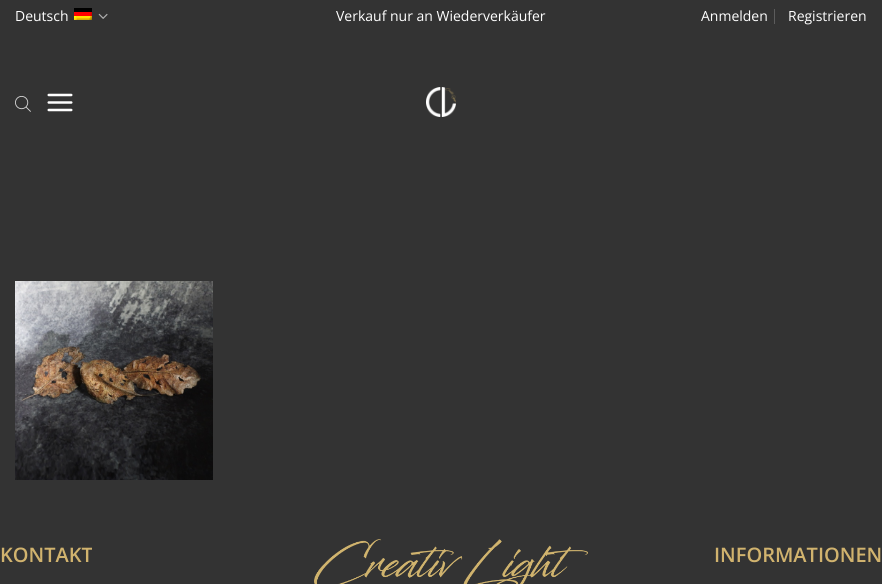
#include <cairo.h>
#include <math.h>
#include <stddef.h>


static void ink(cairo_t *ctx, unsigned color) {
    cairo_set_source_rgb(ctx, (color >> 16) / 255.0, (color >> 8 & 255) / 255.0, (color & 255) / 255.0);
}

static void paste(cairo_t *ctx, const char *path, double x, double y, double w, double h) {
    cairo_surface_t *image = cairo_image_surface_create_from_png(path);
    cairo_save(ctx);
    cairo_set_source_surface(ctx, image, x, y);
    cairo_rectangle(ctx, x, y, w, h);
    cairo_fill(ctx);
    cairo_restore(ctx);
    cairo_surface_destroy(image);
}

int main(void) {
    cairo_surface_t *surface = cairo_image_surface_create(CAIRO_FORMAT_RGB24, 882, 584);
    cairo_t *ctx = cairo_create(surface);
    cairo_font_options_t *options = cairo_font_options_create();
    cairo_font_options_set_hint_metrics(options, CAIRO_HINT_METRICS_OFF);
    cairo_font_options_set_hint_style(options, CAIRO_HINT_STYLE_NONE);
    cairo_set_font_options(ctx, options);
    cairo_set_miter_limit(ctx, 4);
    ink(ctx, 0x333333);
    cairo_paint(ctx);
    cairo_select_font_face(ctx, "Open Sans", CAIRO_FONT_SLANT_NORMAL, CAIRO_FONT_WEIGHT_NORMAL);
    cairo_set_font_size(ctx, 14);
    ink(ctx, 0xFFFFFF);
    cairo_move_to(ctx, 15, 21);
    cairo_show_text(ctx, "Deutsch");
    paste(ctx, "media/1.png", 74, 8, 18, 12);
    paste(ctx, "media/2.png", 98, 13, 10, 6);
    cairo_move_to(ctx, 336, 21);
    cairo_show_text(ctx, "Verkauf nur an Wiederverkäufer");
    cairo_move_to(ctx, 701, 21);
    cairo_show_text(ctx, "Anmelden");
    ink(ctx, 0x5C5C5C);
    cairo_rectangle(ctx, 774, 9, 1, 15);
    cairo_fill(ctx);
    ink(ctx, 0xFFFFFF);
    cairo_move_to(ctx, 788, 21);
    cairo_show_text(ctx, "Registrieren");
    paste(ctx, "media/3.png", 15, 96, 16, 16);
    paste(ctx, "media/4.png", 47, 93, 26, 19);
    paste(ctx, "media/5.png", 426, 87, 30, 30);
    paste(ctx, "media/6.png", 15, 281, 198, 199);
    cairo_select_font_face(ctx, "Open Sans SemiBold", CAIRO_FONT_SLANT_NORMAL, CAIRO_FONT_WEIGHT_NORMAL);
    cairo_set_font_size(ctx, 20);
    ink(ctx, 0xD1B36E);
    cairo_move_to(ctx, 0, 562);
    cairo_show_text(ctx, "KONTAKT");
    paste(ctx, "media/7.png", 314, 539, 274, 45);
    cairo_move_to(ctx, 714, 562);
    cairo_show_text(ctx, "INFORMATIONEN");
    cairo_surface_write_to_png(surface, "image.png");
    cairo_font_options_destroy(options);
    cairo_destroy(ctx);
    cairo_surface_destroy(surface);
    return 0;
}
